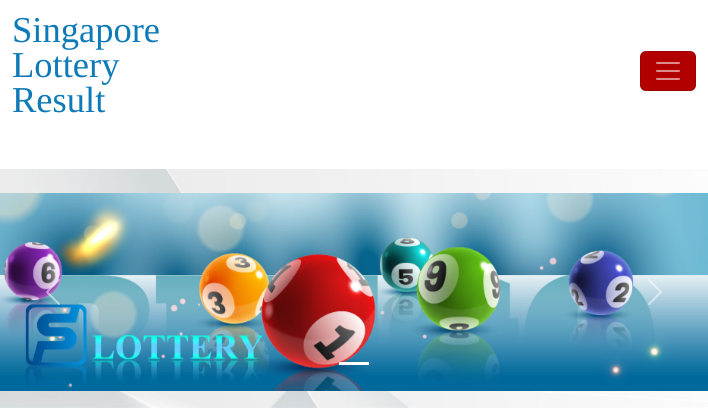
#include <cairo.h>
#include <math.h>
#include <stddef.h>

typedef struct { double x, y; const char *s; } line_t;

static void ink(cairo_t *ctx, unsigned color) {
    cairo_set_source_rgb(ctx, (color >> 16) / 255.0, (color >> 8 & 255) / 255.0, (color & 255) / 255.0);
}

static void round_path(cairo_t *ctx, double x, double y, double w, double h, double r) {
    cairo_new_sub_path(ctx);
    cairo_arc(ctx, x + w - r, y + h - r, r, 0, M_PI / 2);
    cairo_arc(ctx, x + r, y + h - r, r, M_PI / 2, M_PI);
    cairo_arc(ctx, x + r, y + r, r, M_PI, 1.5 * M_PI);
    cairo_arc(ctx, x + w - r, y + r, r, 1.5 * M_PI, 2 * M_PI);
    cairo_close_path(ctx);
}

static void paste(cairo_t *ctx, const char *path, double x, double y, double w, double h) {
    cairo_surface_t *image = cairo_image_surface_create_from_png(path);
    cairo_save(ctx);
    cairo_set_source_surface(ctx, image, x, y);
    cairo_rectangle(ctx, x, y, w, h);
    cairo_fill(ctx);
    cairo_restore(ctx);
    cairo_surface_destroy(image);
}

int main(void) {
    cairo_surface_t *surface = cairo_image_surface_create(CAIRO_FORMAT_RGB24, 708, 408);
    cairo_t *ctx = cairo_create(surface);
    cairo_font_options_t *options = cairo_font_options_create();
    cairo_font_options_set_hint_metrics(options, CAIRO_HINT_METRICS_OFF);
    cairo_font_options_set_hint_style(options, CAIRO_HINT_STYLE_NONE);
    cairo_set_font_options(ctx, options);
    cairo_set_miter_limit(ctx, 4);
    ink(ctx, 0xFFFFFF);
    cairo_paint(ctx);
    paste(ctx, "media/1.png", 0, 169, 708, 239);
    cairo_select_font_face(ctx, "Liberation Serif", CAIRO_FONT_SLANT_NORMAL, CAIRO_FONT_WEIGHT_NORMAL);
    cairo_set_font_size(ctx, 36.5);
    ink(ctx, 0x0E7AB7);
    {
        static const line_t items[] = {
            {12, 42, "Singapore"},
            {12, 77, "Lottery"},
            {12, 112, "Result"},
        };
        for (size_t i = 0; i < sizeof items / sizeof *items; i++) {
            cairo_move_to(ctx, items[i].x, items[i].y);
            cairo_show_text(ctx, items[i].s);
        }
    }
    ink(ctx, 0xB20000);
    round_path(ctx, 640, 51, 56, 40, 6);
    cairo_fill(ctx);
    round_path(ctx, 640.5, 51.5, 55, 39, 5.5);
    cairo_set_source_rgba(ctx, 0, 0, 0, 0.1);
    cairo_set_line_width(ctx, 1);
    cairo_stroke(ctx);
    paste(ctx, "media/2.png", 656, 62, 24, 18);
    paste(ctx, "media/3.png", 0, 193, 708, 198);
    paste(ctx, "media/4.png", 46, 279, 14, 26);
    paste(ctx, "media/5.png", 648, 279, 14, 26);
    ink(ctx, 0xFFFFFF);
    cairo_rectangle(ctx, 339, 362, 30, 3);
    cairo_fill(ctx);
    cairo_surface_write_to_png(surface, "image.png");
    cairo_font_options_destroy(options);
    cairo_destroy(ctx);
    cairo_surface_destroy(surface);
    return 0;
}
